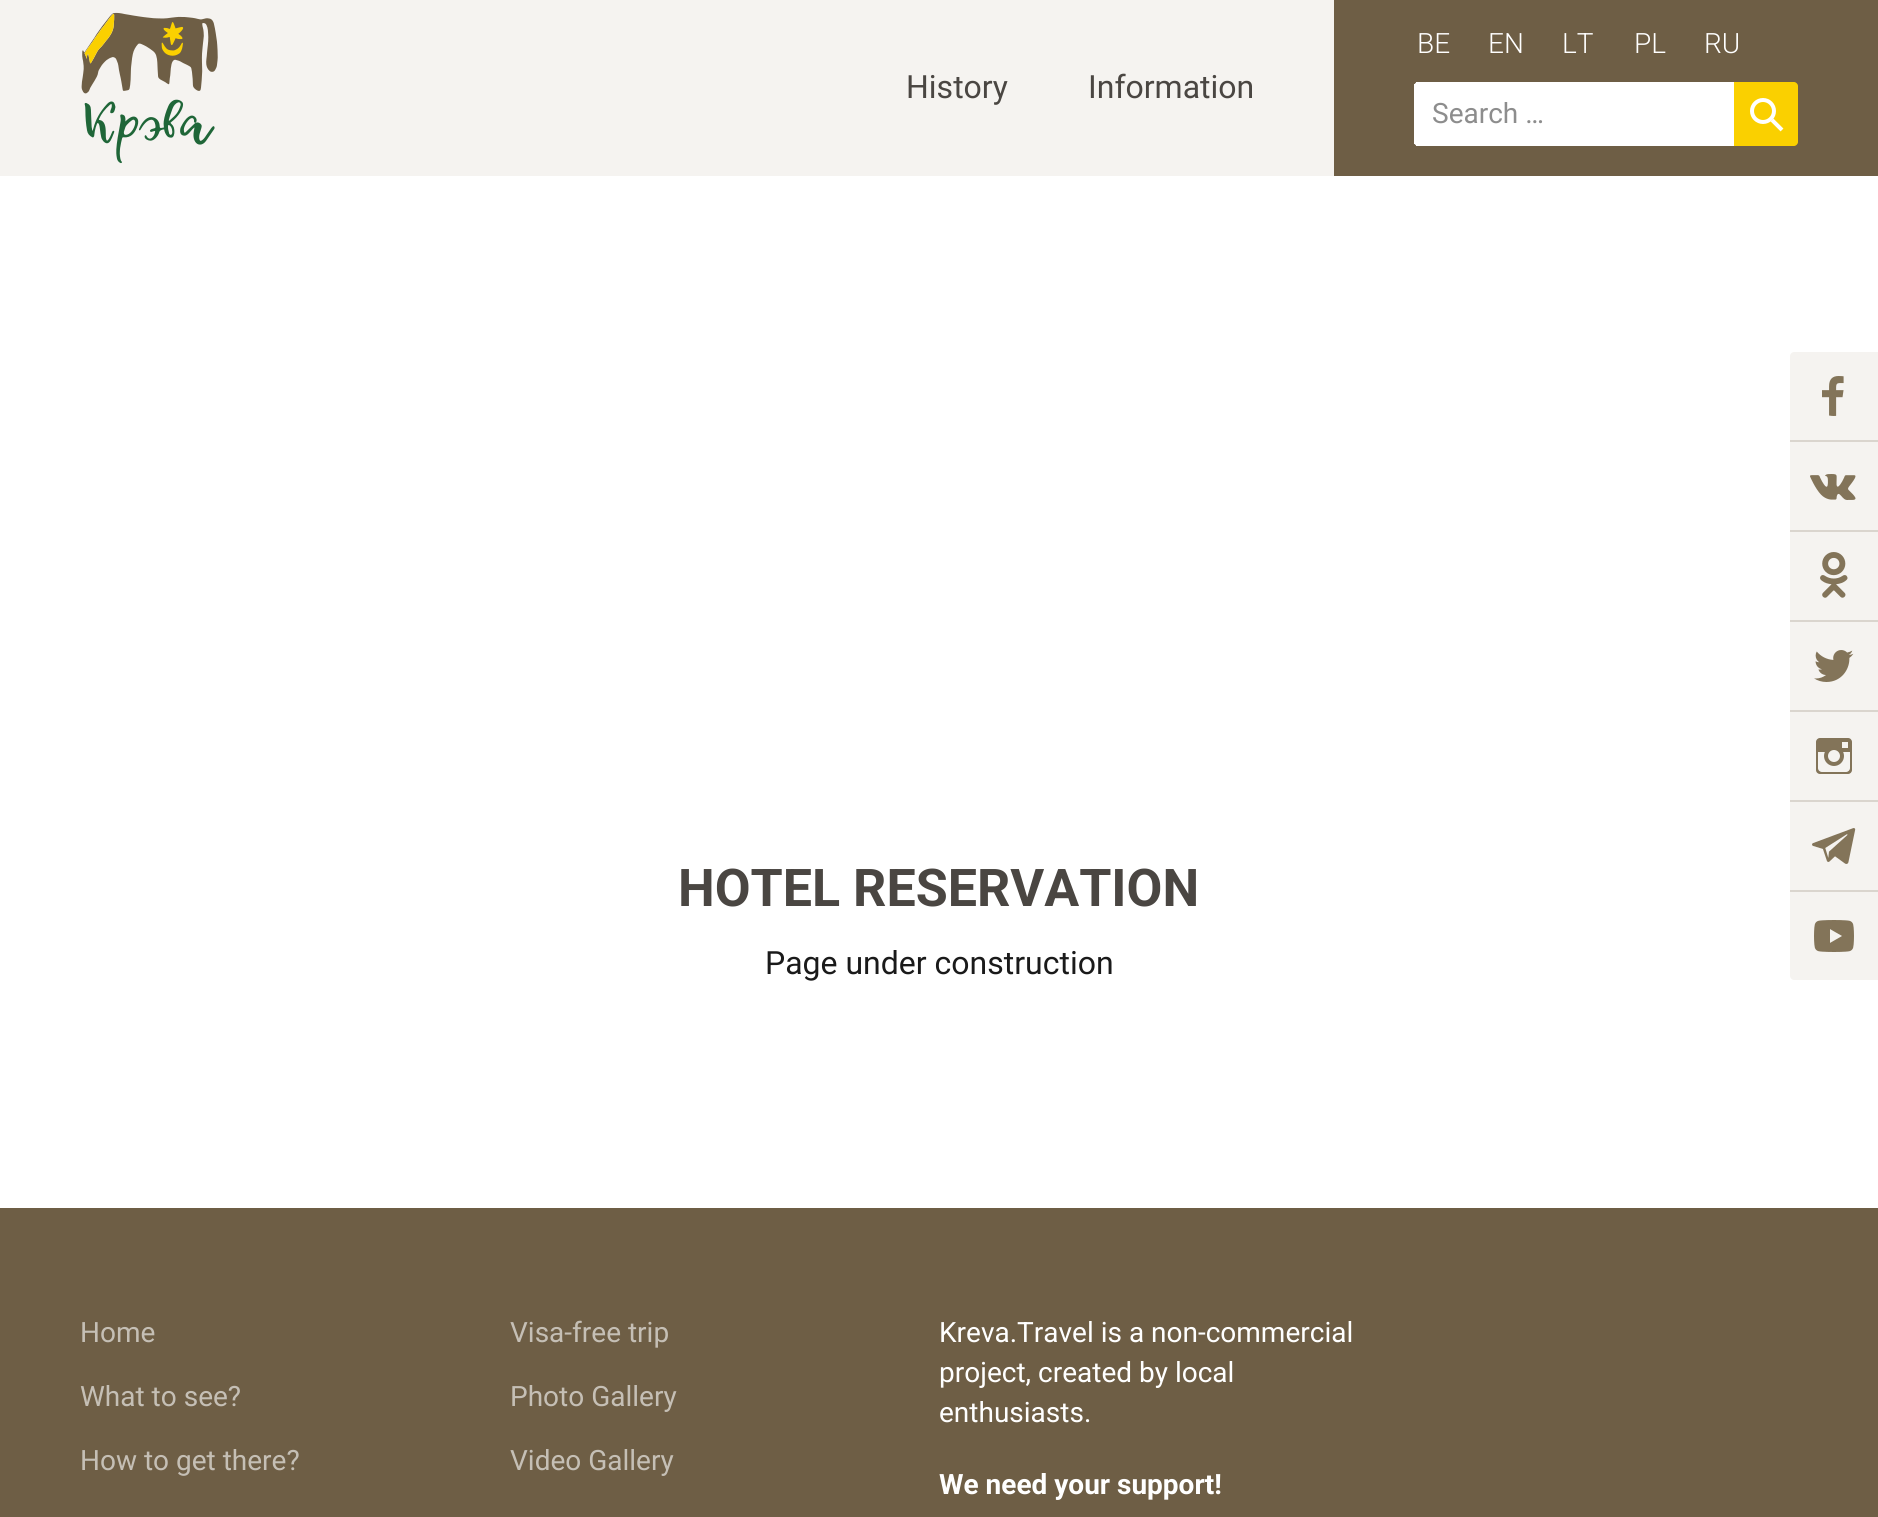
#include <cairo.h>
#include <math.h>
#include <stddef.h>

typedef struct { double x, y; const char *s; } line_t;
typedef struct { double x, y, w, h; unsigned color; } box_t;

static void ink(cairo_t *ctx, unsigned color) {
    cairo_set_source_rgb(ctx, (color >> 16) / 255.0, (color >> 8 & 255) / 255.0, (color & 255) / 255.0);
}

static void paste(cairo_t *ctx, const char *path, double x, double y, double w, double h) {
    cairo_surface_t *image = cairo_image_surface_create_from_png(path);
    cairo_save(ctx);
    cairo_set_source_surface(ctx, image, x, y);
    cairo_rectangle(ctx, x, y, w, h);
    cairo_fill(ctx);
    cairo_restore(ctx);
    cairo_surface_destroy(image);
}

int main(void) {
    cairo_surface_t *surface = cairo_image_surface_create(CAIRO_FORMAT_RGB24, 1878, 1517);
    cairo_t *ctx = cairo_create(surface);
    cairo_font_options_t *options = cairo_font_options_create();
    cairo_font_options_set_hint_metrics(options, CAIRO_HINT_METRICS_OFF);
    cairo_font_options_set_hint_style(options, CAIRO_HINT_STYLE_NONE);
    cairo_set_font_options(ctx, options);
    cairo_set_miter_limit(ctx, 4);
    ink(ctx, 0xFFFFFF);
    cairo_paint(ctx);
    ink(ctx, 0xF5F3F0);
    cairo_rectangle(ctx, 0, 0, 1334, 176);
    cairo_fill(ctx);
    paste(ctx, "media/1.png", 81, 12, 137, 82);
    paste(ctx, "media/2.png", 84, 99, 131, 65);
    cairo_select_font_face(ctx, "Roboto", CAIRO_FONT_SLANT_NORMAL, CAIRO_FONT_WEIGHT_NORMAL);
    cairo_set_font_size(ctx, 32);
    ink(ctx, 0x4A4642);
    cairo_move_to(ctx, 906, 98);
    cairo_show_text(ctx, "History");
    cairo_move_to(ctx, 1088, 98);
    cairo_show_text(ctx, "Information");
    ink(ctx, 0x6E5E45);
    cairo_rectangle(ctx, 1334, 0, 544, 176);
    cairo_fill(ctx);
    cairo_select_font_face(ctx, "Roboto Light", CAIRO_FONT_SLANT_NORMAL, CAIRO_FONT_WEIGHT_NORMAL);
    cairo_set_font_size(ctx, 28);
    ink(ctx, 0xFFFFFF);
    {
        static const line_t items[] = {
            {1417, 53, "BE"},
            {1488, 53, "EN"},
            {1562, 53, "LT"},
            {1634, 53, "PL"},
            {1704, 53, "RU"},
        };
        for (size_t i = 0; i < sizeof items / sizeof *items; i++) {
            cairo_move_to(ctx, items[i].x, items[i].y);
            cairo_show_text(ctx, items[i].s);
        }
    }
    cairo_new_path(ctx);
    cairo_move_to(ctx, 1418, 82);
    cairo_line_to(ctx, 1734, 82);
    cairo_line_to(ctx, 1734, 146);
    cairo_line_to(ctx, 1418, 146);
    cairo_curve_to(ctx, 1416, 146, 1414, 144, 1414, 142);
    cairo_line_to(ctx, 1414, 86);
    cairo_curve_to(ctx, 1414, 84, 1416, 82, 1418, 82);
    cairo_close_path(ctx);
    cairo_fill(ctx);
    {
        static const box_t items[] = {
            {1416, 82, 2, 1, 0xFFFFFF},
            {1416, 145, 2, 1, 0xFFFFFF},
            {1414, 84, 1, 60, 0xFFFFFF},
        };
        for (size_t i = 0; i < sizeof items / sizeof *items; i++) {
            ink(ctx, items[i].color);
            cairo_rectangle(ctx, items[i].x, items[i].y, items[i].w, items[i].h);
            cairo_fill(ctx);
        }
    }
    cairo_select_font_face(ctx, "Roboto", CAIRO_FONT_SLANT_NORMAL, CAIRO_FONT_WEIGHT_NORMAL);
    ink(ctx, 0x8D8D8D);
    cairo_move_to(ctx, 1432, 123);
    cairo_show_text(ctx, "Search …");
    ink(ctx, 0xFAD000);
    cairo_new_path(ctx);
    cairo_move_to(ctx, 1734, 82);
    cairo_line_to(ctx, 1794, 82);
    cairo_curve_to(ctx, 1796, 82, 1798, 84, 1798, 86);
    cairo_line_to(ctx, 1798, 142);
    cairo_curve_to(ctx, 1798, 144, 1796, 146, 1794, 146);
    cairo_line_to(ctx, 1734, 146);
    cairo_close_path(ctx);
    cairo_fill(ctx);
    cairo_arc(ctx, 1763, 111, 11, 0, 2 * M_PI);
    ink(ctx, 0xFFFFFF);
    cairo_set_line_width(ctx, 4);
    cairo_stroke(ctx);
    cairo_new_path(ctx);
    cairo_move_to(ctx, 1782, 130);
    cairo_line_to(ctx, 1772, 120);
    cairo_stroke(ctx);
    cairo_select_font_face(ctx, "Roboto", CAIRO_FONT_SLANT_NORMAL, CAIRO_FONT_WEIGHT_BOLD);
    cairo_set_font_size(ctx, 52);
    ink(ctx, 0x4A4642);
    cairo_move_to(ctx, 678, 906);
    cairo_show_text(ctx, "HOTEL RESERVATION");
    cairo_select_font_face(ctx, "Roboto", CAIRO_FONT_SLANT_NORMAL, CAIRO_FONT_WEIGHT_NORMAL);
    cairo_set_font_size(ctx, 32);
    ink(ctx, 0x1A1A1A);
    cairo_move_to(ctx, 765, 974);
    cairo_show_text(ctx, "Page under construction");
    ink(ctx, 0xF5F3F0);
    cairo_new_path(ctx);
    cairo_move_to(ctx, 1794, 352);
    cairo_line_to(ctx, 1878, 352);
    cairo_line_to(ctx, 1878, 442);
    cairo_line_to(ctx, 1790, 442);
    cairo_line_to(ctx, 1790, 356);
    cairo_curve_to(ctx, 1790, 354, 1792, 352, 1794, 352);
    cairo_close_path(ctx);
    cairo_fill(ctx);
    ink(ctx, 0xDAD5CE);
    cairo_rectangle(ctx, 1790, 440, 88, 2);
    cairo_fill(ctx);
    paste(ctx, "media/3.png", 1822, 376, 22, 40);
    ink(ctx, 0xF5F3F0);
    cairo_rectangle(ctx, 1790, 442, 88, 88);
    cairo_fill(ctx);
    ink(ctx, 0xDAD5CE);
    cairo_rectangle(ctx, 1790, 530, 88, 2);
    cairo_fill(ctx);
    paste(ctx, "media/4.png", 1810, 474, 46, 26);
    ink(ctx, 0xF5F3F0);
    cairo_rectangle(ctx, 1790, 532, 88, 88);
    cairo_fill(ctx);
    ink(ctx, 0xDAD5CE);
    cairo_rectangle(ctx, 1790, 620, 88, 2);
    cairo_fill(ctx);
    paste(ctx, "media/5.png", 1820, 552, 28, 46);
    ink(ctx, 0xF5F3F0);
    cairo_rectangle(ctx, 1790, 622, 88, 88);
    cairo_fill(ctx);
    ink(ctx, 0xDAD5CE);
    cairo_rectangle(ctx, 1790, 710, 88, 2);
    cairo_fill(ctx);
    paste(ctx, "media/6.png", 1814, 650, 40, 32);
    ink(ctx, 0xF5F3F0);
    cairo_rectangle(ctx, 1790, 712, 88, 88);
    cairo_fill(ctx);
    ink(ctx, 0xDAD5CE);
    cairo_rectangle(ctx, 1790, 800, 88, 2);
    cairo_fill(ctx);
    paste(ctx, "media/7.png", 1816, 738, 36, 36);
    ink(ctx, 0xF5F3F0);
    cairo_rectangle(ctx, 1790, 802, 88, 88);
    cairo_fill(ctx);
    ink(ctx, 0xDAD5CE);
    cairo_rectangle(ctx, 1790, 890, 88, 2);
    cairo_fill(ctx);
    paste(ctx, "media/8.png", 1812, 828, 44, 36);
    ink(ctx, 0xF5F3F0);
    cairo_new_path(ctx);
    cairo_move_to(ctx, 1790, 892);
    cairo_line_to(ctx, 1878, 892);
    cairo_line_to(ctx, 1878, 980);
    cairo_line_to(ctx, 1794, 980);
    cairo_curve_to(ctx, 1792, 980, 1790, 978, 1790, 976);
    cairo_close_path(ctx);
    cairo_fill(ctx);
    paste(ctx, "media/9.png", 1814, 920, 40, 32);
    ink(ctx, 0x6E5E45);
    cairo_rectangle(ctx, 0, 1208, 1878, 309);
    cairo_fill(ctx);
    cairo_set_font_size(ctx, 28);
    ink(ctx, 0xC5BFB5);
    {
        static const line_t items[] = {
            {80, 1342, "Home"},
            {80, 1406, "What to see?"},
            {80, 1470, "How to get there?"},
            {510, 1342, "Visa-free trip"},
            {510, 1406, "Photo Gallery"},
            {510, 1470, "Video Gallery"},
        };
        for (size_t i = 0; i < sizeof items / sizeof *items; i++) {
            cairo_move_to(ctx, items[i].x, items[i].y);
            cairo_show_text(ctx, items[i].s);
        }
    }
    ink(ctx, 0xFFFFFF);
    {
        static const line_t items[] = {
            {939, 1342, "Kreva.Travel is a non-commercial"},
            {939, 1382, "project, created by local"},
            {939, 1422, "enthusiasts."},
        };
        for (size_t i = 0; i < sizeof items / sizeof *items; i++) {
            cairo_move_to(ctx, items[i].x, items[i].y);
            cairo_show_text(ctx, items[i].s);
        }
    }
    cairo_select_font_face(ctx, "Roboto", CAIRO_FONT_SLANT_NORMAL, CAIRO_FONT_WEIGHT_BOLD);
    cairo_move_to(ctx, 939, 1494);
    cairo_show_text(ctx, "We need your support!");
    cairo_surface_write_to_png(surface, "image.png");
    cairo_font_options_destroy(options);
    cairo_destroy(ctx);
    cairo_surface_destroy(surface);
    return 0;
}
